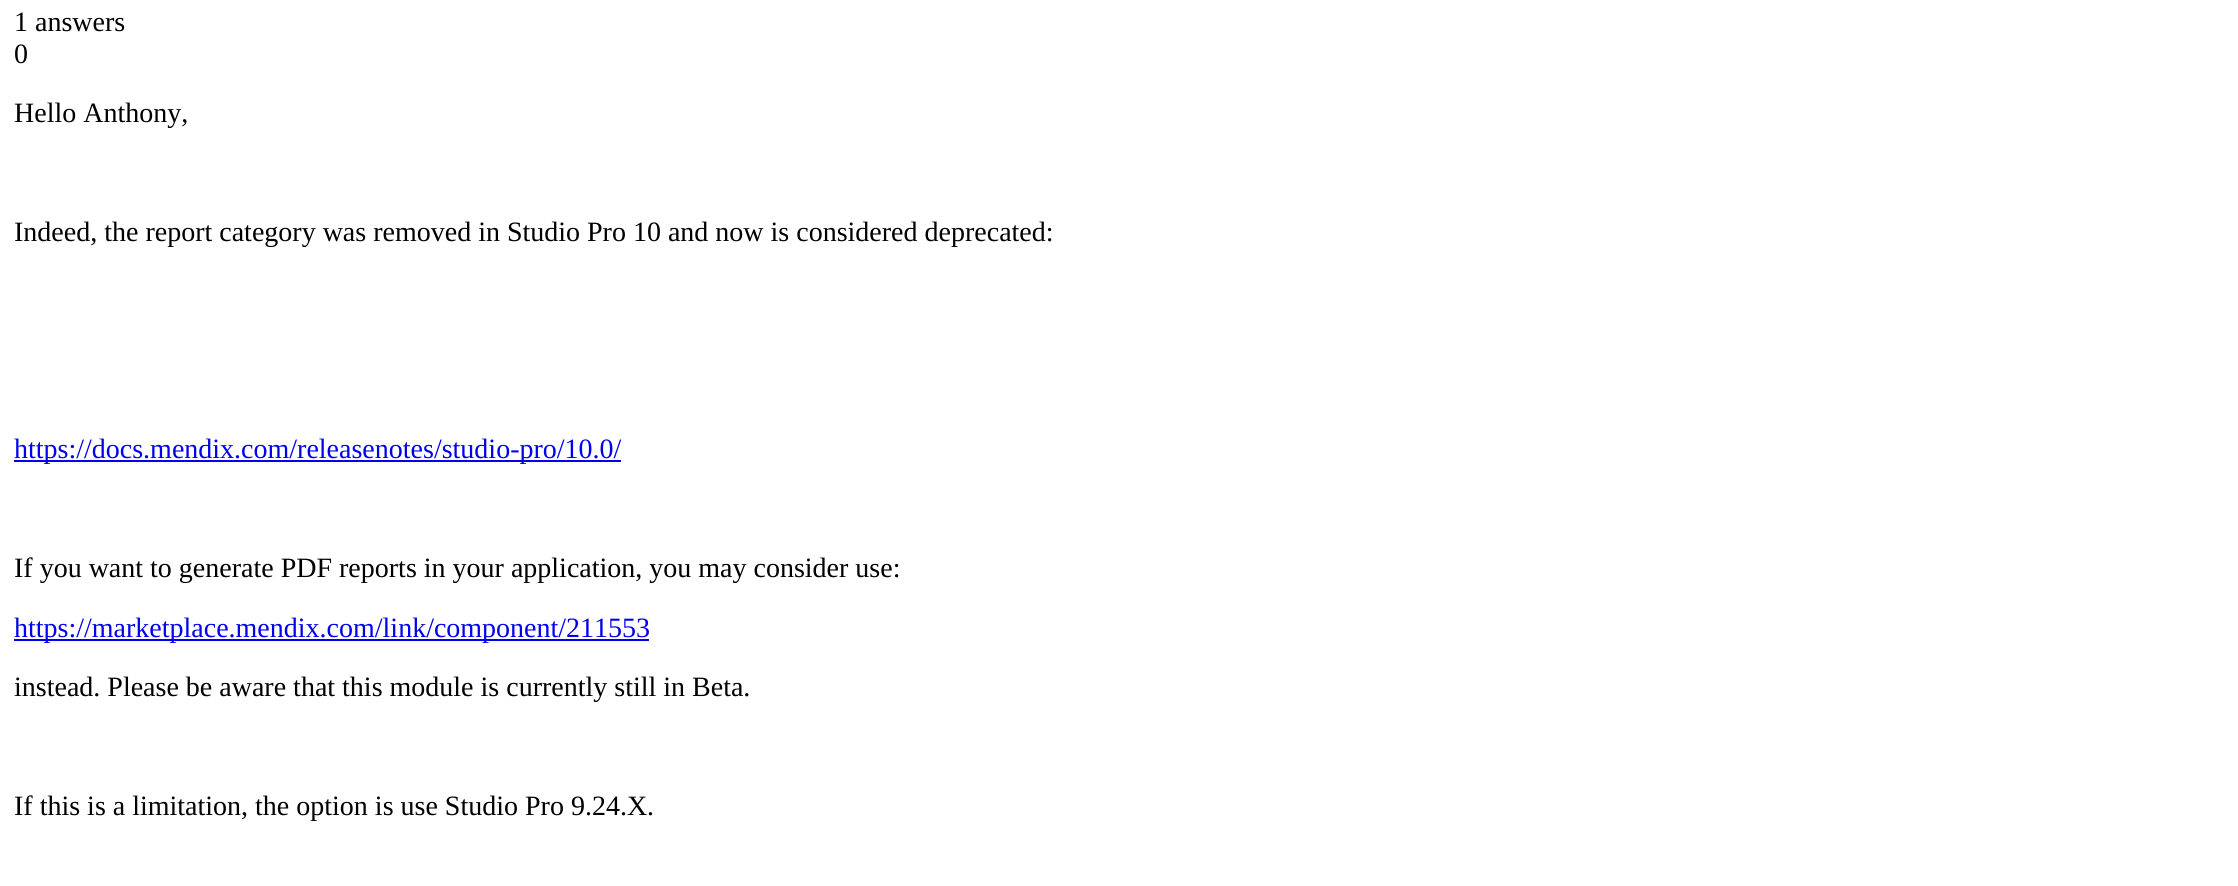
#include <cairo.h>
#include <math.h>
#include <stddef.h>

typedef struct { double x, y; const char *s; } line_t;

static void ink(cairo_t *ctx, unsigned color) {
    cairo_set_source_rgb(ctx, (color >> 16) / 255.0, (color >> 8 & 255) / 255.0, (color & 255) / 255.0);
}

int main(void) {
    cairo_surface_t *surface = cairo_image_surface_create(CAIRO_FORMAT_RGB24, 2238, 886);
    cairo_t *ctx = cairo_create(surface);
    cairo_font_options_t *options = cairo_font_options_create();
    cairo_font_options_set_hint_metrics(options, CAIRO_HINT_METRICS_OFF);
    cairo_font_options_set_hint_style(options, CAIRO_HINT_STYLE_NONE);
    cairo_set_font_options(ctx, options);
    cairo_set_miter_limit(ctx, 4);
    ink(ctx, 0xFFFFFF);
    cairo_paint(ctx);
    cairo_select_font_face(ctx, "Liberation Serif", CAIRO_FONT_SLANT_NORMAL, CAIRO_FONT_WEIGHT_NORMAL);
    cairo_set_font_size(ctx, 28);
    ink(ctx, 0x000000);
    {
        static const line_t items[] = {
            {14, 31, "1 answers"},
            {14, 63, "0"},
            {14, 122, "Hello Anthony,"},
            {14, 241, "Indeed, the report category was removed in Studio Pro 10 and now is considered deprecated:"},
        };
        for (size_t i = 0; i < sizeof items / sizeof *items; i++) {
            cairo_move_to(ctx, items[i].x, items[i].y);
            cairo_show_text(ctx, items[i].s);
        }
    }
    ink(ctx, 0x0000EE);
    cairo_rectangle(ctx, 14, 460, 607, 2);
    cairo_fill(ctx);
    cairo_move_to(ctx, 14, 458);
    cairo_show_text(ctx, "https://docs.mendix.com/releasenotes/studio-pro/10.0/");
    ink(ctx, 0x000000);
    cairo_move_to(ctx, 14, 577);
    cairo_show_text(ctx, "If you want to generate PDF reports in your application, you may consider use:");
    ink(ctx, 0x0000EE);
    cairo_rectangle(ctx, 14, 639, 635, 2);
    cairo_fill(ctx);
    cairo_move_to(ctx, 14, 637);
    cairo_show_text(ctx, "https://marketplace.mendix.com/link/component/211553");
    ink(ctx, 0x000000);
    cairo_move_to(ctx, 14, 696);
    cairo_show_text(ctx, "instead. Please be aware that this module is currently still in Beta.");
    cairo_move_to(ctx, 14, 815);
    cairo_show_text(ctx, "If this is a limitation, the option is use Studio Pro 9.24.X.");
    cairo_surface_write_to_png(surface, "image.png");
    cairo_font_options_destroy(options);
    cairo_destroy(ctx);
    cairo_surface_destroy(surface);
    return 0;
}
